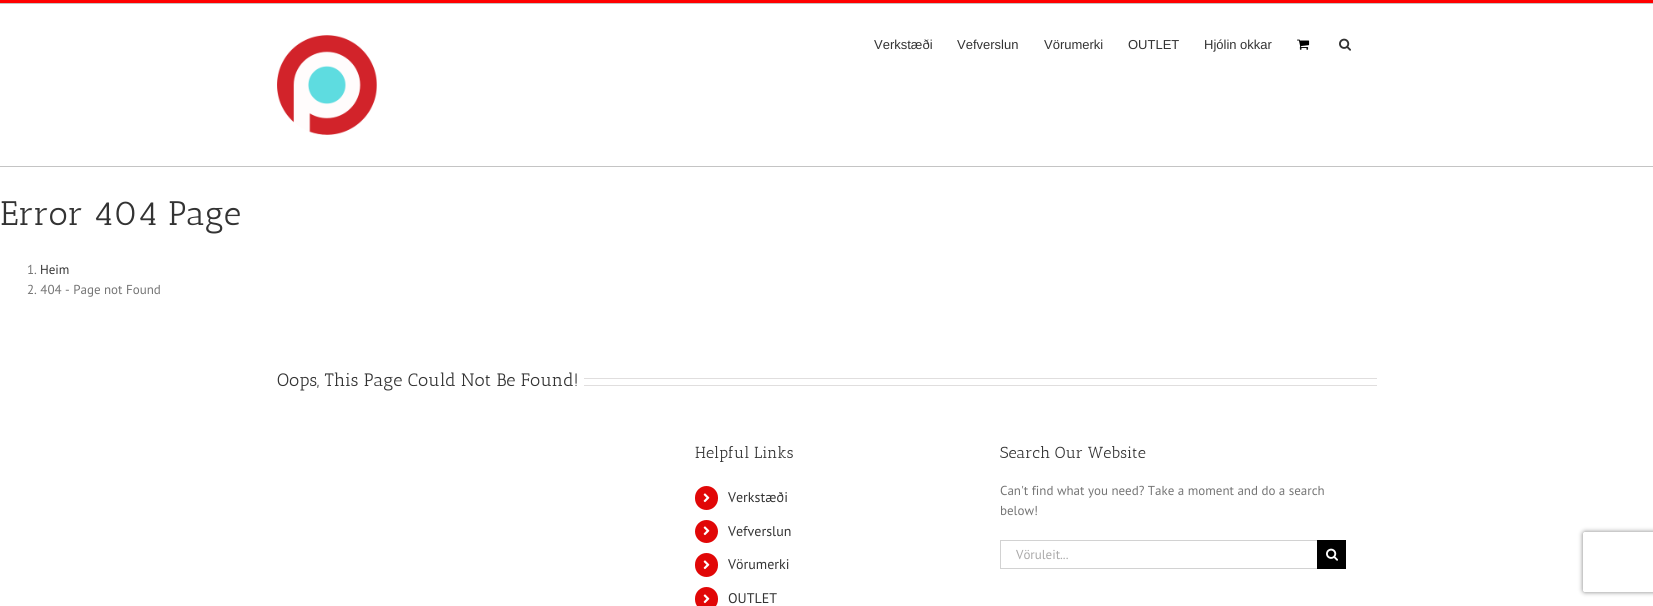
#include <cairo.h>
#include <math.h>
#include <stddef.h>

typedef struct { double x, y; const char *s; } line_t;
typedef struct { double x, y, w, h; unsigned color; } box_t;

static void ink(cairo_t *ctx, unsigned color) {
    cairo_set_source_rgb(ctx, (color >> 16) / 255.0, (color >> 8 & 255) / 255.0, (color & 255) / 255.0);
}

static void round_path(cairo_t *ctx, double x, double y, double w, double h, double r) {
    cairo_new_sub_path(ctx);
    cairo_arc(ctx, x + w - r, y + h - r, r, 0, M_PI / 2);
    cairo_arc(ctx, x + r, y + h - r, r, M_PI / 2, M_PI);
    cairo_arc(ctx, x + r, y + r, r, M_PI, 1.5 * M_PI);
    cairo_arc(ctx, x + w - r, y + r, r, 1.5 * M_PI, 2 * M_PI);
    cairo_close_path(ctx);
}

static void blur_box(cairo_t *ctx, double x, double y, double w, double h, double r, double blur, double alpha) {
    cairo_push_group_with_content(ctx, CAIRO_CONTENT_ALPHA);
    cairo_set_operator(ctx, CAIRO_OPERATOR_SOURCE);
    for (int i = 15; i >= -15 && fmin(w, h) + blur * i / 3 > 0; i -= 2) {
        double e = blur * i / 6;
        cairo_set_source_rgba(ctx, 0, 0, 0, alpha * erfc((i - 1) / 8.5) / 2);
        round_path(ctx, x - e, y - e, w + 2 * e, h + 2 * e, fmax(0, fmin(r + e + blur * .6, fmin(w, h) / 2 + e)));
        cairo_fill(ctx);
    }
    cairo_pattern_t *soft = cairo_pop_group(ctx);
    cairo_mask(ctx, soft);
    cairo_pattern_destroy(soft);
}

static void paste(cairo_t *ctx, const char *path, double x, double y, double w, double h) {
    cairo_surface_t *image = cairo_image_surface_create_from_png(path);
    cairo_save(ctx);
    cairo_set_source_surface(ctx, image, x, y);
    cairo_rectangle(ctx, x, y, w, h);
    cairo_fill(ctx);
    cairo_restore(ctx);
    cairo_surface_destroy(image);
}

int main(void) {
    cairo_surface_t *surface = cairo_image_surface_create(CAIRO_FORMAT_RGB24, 1653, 606);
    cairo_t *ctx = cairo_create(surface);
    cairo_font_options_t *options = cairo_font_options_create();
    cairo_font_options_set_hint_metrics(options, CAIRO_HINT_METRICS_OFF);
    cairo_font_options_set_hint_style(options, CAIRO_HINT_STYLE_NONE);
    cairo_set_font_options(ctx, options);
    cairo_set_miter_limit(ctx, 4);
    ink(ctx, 0xFFFFFF);
    cairo_paint(ctx);
    {
        static const box_t items[] = {
            {0, 0, 1653, 3, 0xFF0000},
            {0, 3, 1653, 1, 0xC4C4C4},
            {0, 166, 1653, 1, 0xC4C4C4},
        };
        for (size_t i = 0; i < sizeof items / sizeof *items; i++) {
            ink(ctx, items[i].color);
            cairo_rectangle(ctx, items[i].x, items[i].y, items[i].w, items[i].h);
            cairo_fill(ctx);
        }
    }
    paste(ctx, "media/1.png", 277, 35, 100, 100);
    cairo_select_font_face(ctx, "Liberation Sans", CAIRO_FONT_SLANT_NORMAL, CAIRO_FONT_WEIGHT_NORMAL);
    cairo_set_font_size(ctx, 13);
    ink(ctx, 0x333333);
    {
        static const line_t items[] = {
            {874, 49, "Verkstæði"},
            {957, 49, "Vefverslun"},
            {1044, 49, "Vörumerki"},
            {1128, 49, "OUTLET"},
            {1204, 49, "Hjólin okkar"},
        };
        for (size_t i = 0; i < sizeof items / sizeof *items; i++) {
            cairo_move_to(ctx, items[i].x, items[i].y);
            cairo_show_text(ctx, items[i].s);
        }
    }
    paste(ctx, "media/2.png", 1297, 39, 13, 11);
    paste(ctx, "media/3.png", 1339, 38, 12, 13);
    cairo_select_font_face(ctx, "Antic Slab", CAIRO_FONT_SLANT_NORMAL, CAIRO_FONT_WEIGHT_NORMAL);
    cairo_set_font_size(ctx, 34);
    cairo_move_to(ctx, 0, 225);
    cairo_show_text(ctx, "Error 404 Page");
    cairo_select_font_face(ctx, "PT Sans", CAIRO_FONT_SLANT_NORMAL, CAIRO_FONT_WEIGHT_NORMAL);
    cairo_set_font_size(ctx, 13);
    ink(ctx, 0x747474);
    cairo_move_to(ctx, 27, 274);
    cairo_show_text(ctx, "1.");
    ink(ctx, 0x333333);
    cairo_move_to(ctx, 40, 274);
    cairo_show_text(ctx, "Heim");
    ink(ctx, 0x747474);
    cairo_move_to(ctx, 27, 294);
    cairo_show_text(ctx, "2. 404 - Page not Found");
    cairo_select_font_face(ctx, "Antic Slab", CAIRO_FONT_SLANT_NORMAL, CAIRO_FONT_WEIGHT_NORMAL);
    cairo_set_font_size(ctx, 18);
    ink(ctx, 0x333333);
    cairo_move_to(ctx, 277, 386);
    cairo_show_text(ctx, "Oops, This Page Could Not Be Found!");
    ink(ctx, 0xE0DEDE);
    cairo_rectangle(ctx, 584, 378, 793, 1);
    cairo_fill(ctx);
    cairo_rectangle(ctx, 584, 385, 793, 1);
    cairo_fill(ctx);
    cairo_set_font_size(ctx, 16);
    ink(ctx, 0x333333);
    cairo_move_to(ctx, 695, 458);
    cairo_show_text(ctx, "Helpful Links");
    ink(ctx, 0xE10707);
    round_path(ctx, 695, 486, 23, 24, 11.5);
    cairo_fill(ctx);
    paste(ctx, "media/4.png", 703, 493, 7, 10);
    cairo_select_font_face(ctx, "PT Sans", CAIRO_FONT_SLANT_NORMAL, CAIRO_FONT_WEIGHT_NORMAL);
    cairo_set_font_size(ctx, 14);
    ink(ctx, 0x333333);
    cairo_move_to(ctx, 728, 502);
    cairo_show_text(ctx, "Verkstæði");
    ink(ctx, 0xE10707);
    cairo_new_path(ctx);
    cairo_arc(ctx, 706.5, 531.5, 11.5, 0, 2 * M_PI);
    cairo_fill(ctx);
    paste(ctx, "media/4.png", 703, 526, 7, 10);
    ink(ctx, 0x333333);
    cairo_move_to(ctx, 728, 536);
    cairo_show_text(ctx, "Vefverslun");
    ink(ctx, 0xE10707);
    round_path(ctx, 695, 553, 23, 24, 11.5);
    cairo_fill(ctx);
    paste(ctx, "media/4.png", 703, 560, 7, 10);
    ink(ctx, 0x333333);
    cairo_move_to(ctx, 728, 569);
    cairo_show_text(ctx, "Vörumerki");
    ink(ctx, 0xE10707);
    round_path(ctx, 695, 587, 23, 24, 11.5);
    cairo_fill(ctx);
    paste(ctx, "media/4.png", 703, 594, 7, 10);
    ink(ctx, 0x333333);
    cairo_move_to(ctx, 728, 603);
    cairo_show_text(ctx, "OUTLET");
    cairo_select_font_face(ctx, "Antic Slab", CAIRO_FONT_SLANT_NORMAL, CAIRO_FONT_WEIGHT_NORMAL);
    cairo_set_font_size(ctx, 16);
    cairo_move_to(ctx, 1000, 458);
    cairo_show_text(ctx, "Search Our Website");
    cairo_select_font_face(ctx, "PT Sans", CAIRO_FONT_SLANT_NORMAL, CAIRO_FONT_WEIGHT_NORMAL);
    cairo_set_font_size(ctx, 13);
    ink(ctx, 0x747474);
    cairo_move_to(ctx, 1000, 495);
    cairo_show_text(ctx, "Can't find what you need? Take a moment and do a search");
    cairo_move_to(ctx, 1000, 515);
    cairo_show_text(ctx, "below!");
    {
        static const box_t items[] = {
            {1000, 540, 317, 1, 0xD2D2D2},
            {1000, 568, 317, 1, 0xD2D2D2},
            {1000, 540, 1, 29, 0xD2D2D2},
        };
        for (size_t i = 0; i < sizeof items / sizeof *items; i++) {
            ink(ctx, items[i].color);
            cairo_rectangle(ctx, items[i].x, items[i].y, items[i].w, items[i].h);
            cairo_fill(ctx);
        }
    }
    ink(ctx, 0xAAA9A9);
    cairo_move_to(ctx, 1016, 559);
    cairo_show_text(ctx, "Vöruleit...");
    ink(ctx, 0x000000);
    cairo_rectangle(ctx, 1317, 540, 29, 29);
    cairo_fill(ctx);
    paste(ctx, "media/5.png", 1326, 548, 12, 13);
    cairo_save(ctx);
    cairo_set_fill_rule(ctx, CAIRO_FILL_RULE_EVEN_ODD);
    cairo_new_path(ctx);
    cairo_move_to(ctx, 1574, 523);
    cairo_line_to(ctx, 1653, 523);
    cairo_line_to(ctx, 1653, 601);
    cairo_line_to(ctx, 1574, 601);
    cairo_close_path(ctx);
    cairo_move_to(ctx, 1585, 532);
    cairo_line_to(ctx, 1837, 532);
    cairo_curve_to(ctx, 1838, 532, 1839, 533, 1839, 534);
    cairo_line_to(ctx, 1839, 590);
    cairo_curve_to(ctx, 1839, 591, 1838, 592, 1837, 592);
    cairo_line_to(ctx, 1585, 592);
    cairo_curve_to(ctx, 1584, 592, 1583, 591, 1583, 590);
    cairo_line_to(ctx, 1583, 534);
    cairo_curve_to(ctx, 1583, 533, 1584, 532, 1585, 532);
    cairo_close_path(ctx);
    cairo_clip(ctx);
    ink(ctx, 0x808080);
    blur_box(ctx, 1583, 532, 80, 60, 2, 2.5, 1);
    cairo_restore(ctx);
    cairo_surface_write_to_png(surface, "image.png");
    cairo_font_options_destroy(options);
    cairo_destroy(ctx);
    cairo_surface_destroy(surface);
    return 0;
}
